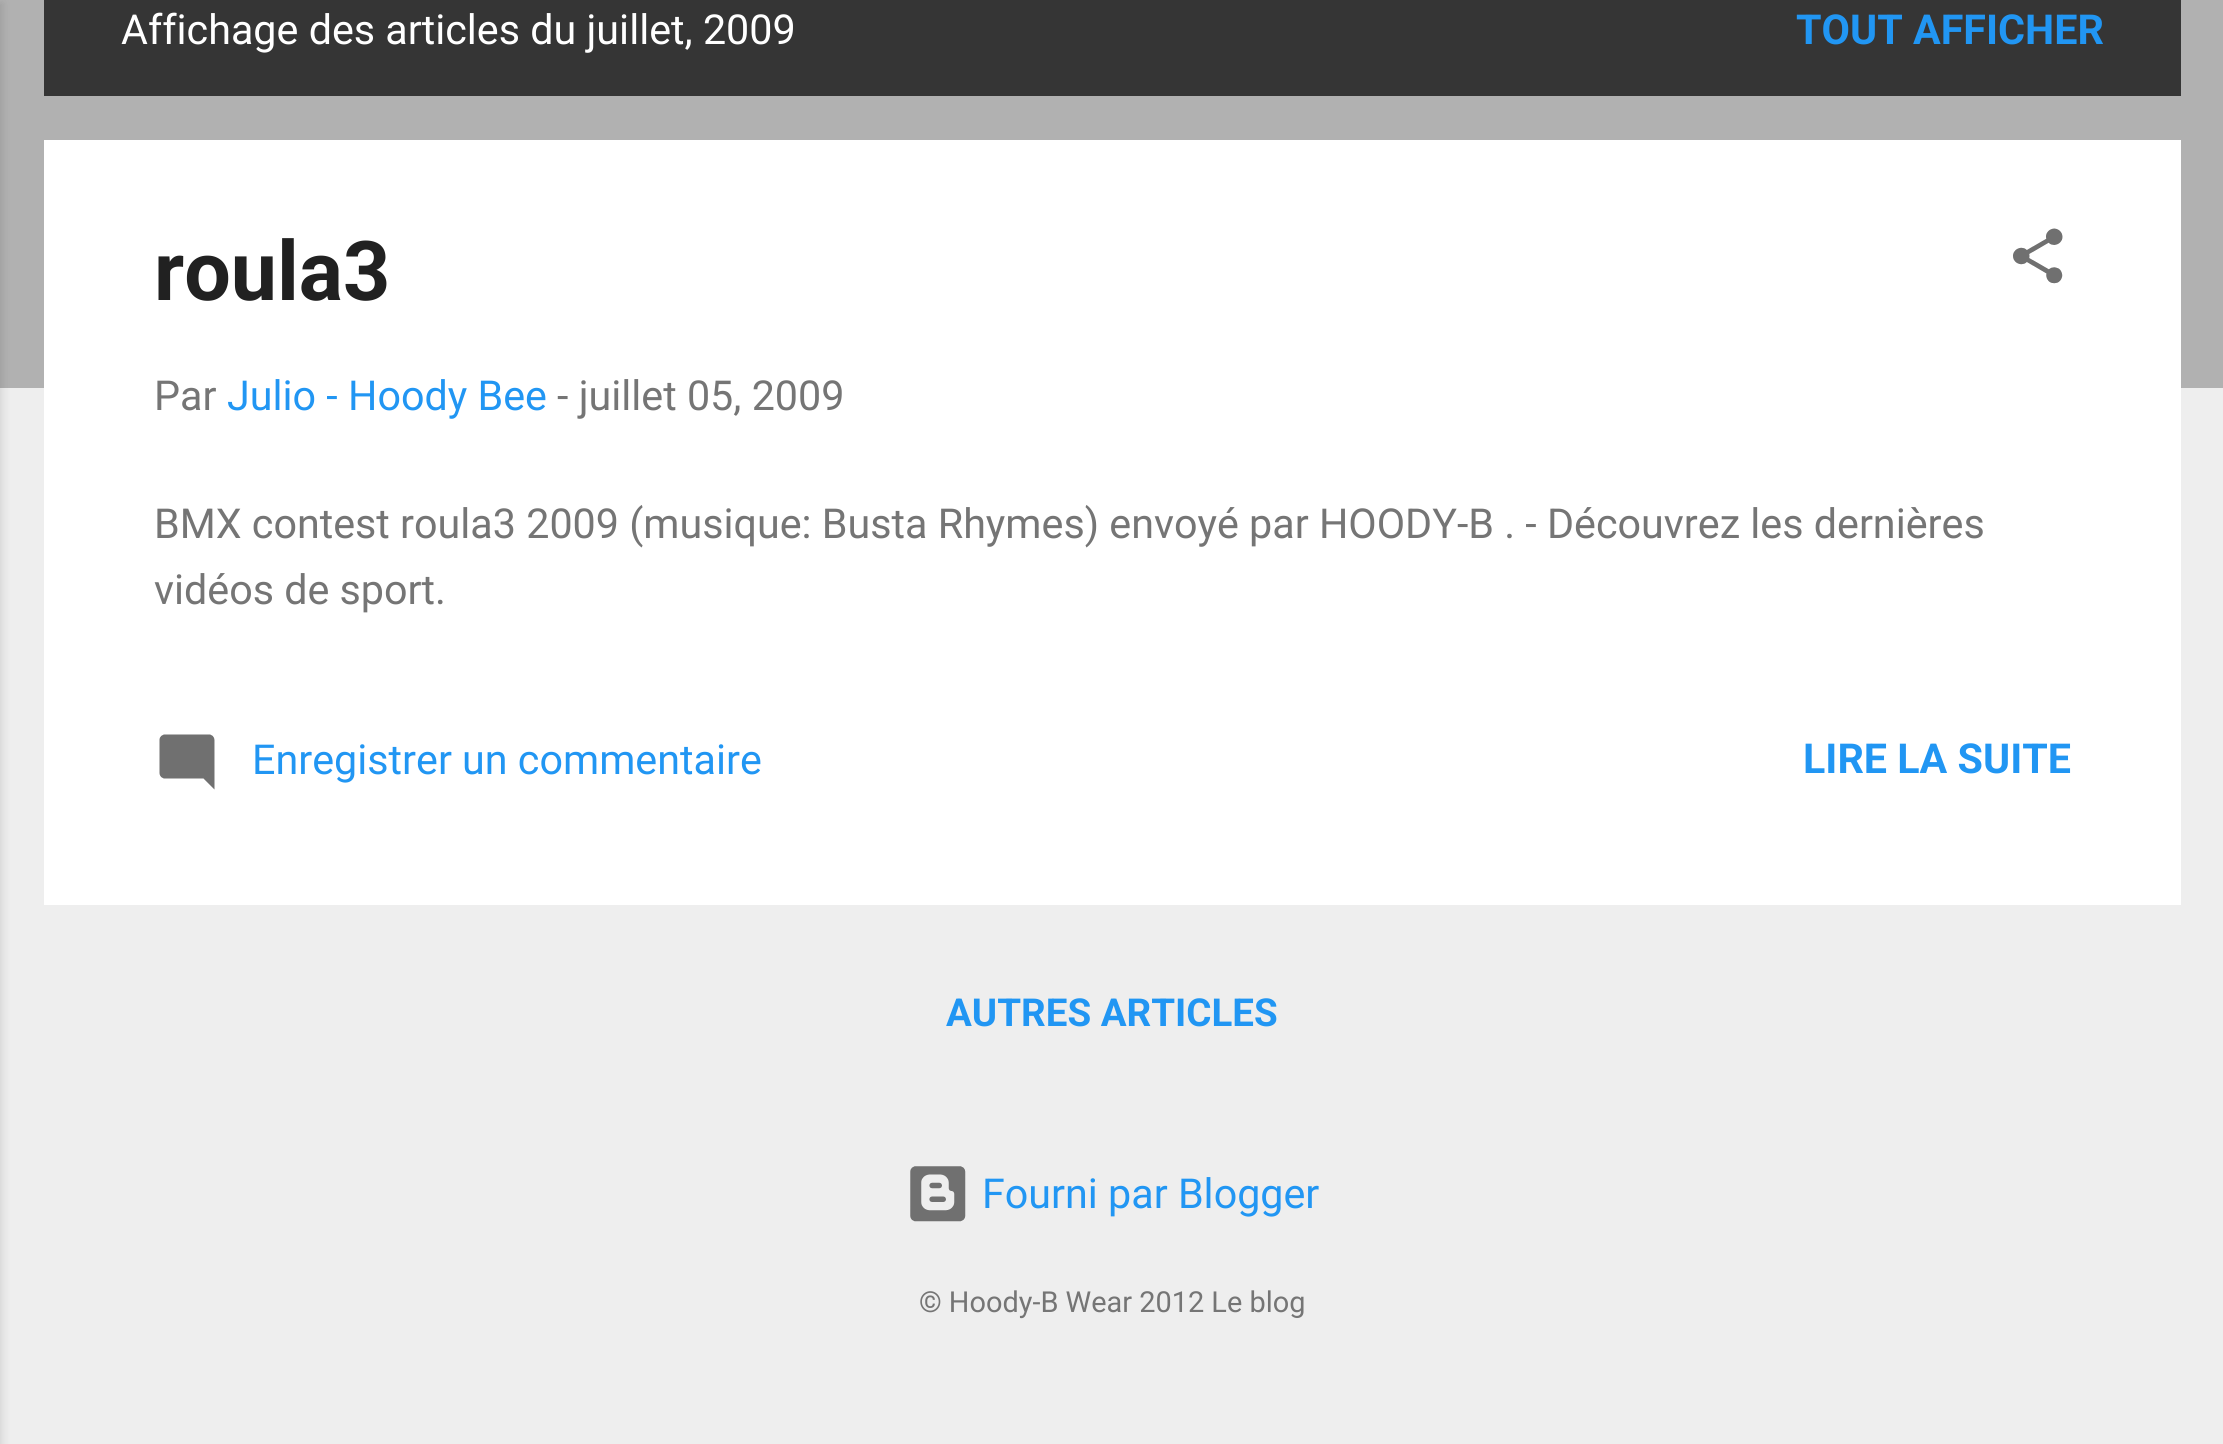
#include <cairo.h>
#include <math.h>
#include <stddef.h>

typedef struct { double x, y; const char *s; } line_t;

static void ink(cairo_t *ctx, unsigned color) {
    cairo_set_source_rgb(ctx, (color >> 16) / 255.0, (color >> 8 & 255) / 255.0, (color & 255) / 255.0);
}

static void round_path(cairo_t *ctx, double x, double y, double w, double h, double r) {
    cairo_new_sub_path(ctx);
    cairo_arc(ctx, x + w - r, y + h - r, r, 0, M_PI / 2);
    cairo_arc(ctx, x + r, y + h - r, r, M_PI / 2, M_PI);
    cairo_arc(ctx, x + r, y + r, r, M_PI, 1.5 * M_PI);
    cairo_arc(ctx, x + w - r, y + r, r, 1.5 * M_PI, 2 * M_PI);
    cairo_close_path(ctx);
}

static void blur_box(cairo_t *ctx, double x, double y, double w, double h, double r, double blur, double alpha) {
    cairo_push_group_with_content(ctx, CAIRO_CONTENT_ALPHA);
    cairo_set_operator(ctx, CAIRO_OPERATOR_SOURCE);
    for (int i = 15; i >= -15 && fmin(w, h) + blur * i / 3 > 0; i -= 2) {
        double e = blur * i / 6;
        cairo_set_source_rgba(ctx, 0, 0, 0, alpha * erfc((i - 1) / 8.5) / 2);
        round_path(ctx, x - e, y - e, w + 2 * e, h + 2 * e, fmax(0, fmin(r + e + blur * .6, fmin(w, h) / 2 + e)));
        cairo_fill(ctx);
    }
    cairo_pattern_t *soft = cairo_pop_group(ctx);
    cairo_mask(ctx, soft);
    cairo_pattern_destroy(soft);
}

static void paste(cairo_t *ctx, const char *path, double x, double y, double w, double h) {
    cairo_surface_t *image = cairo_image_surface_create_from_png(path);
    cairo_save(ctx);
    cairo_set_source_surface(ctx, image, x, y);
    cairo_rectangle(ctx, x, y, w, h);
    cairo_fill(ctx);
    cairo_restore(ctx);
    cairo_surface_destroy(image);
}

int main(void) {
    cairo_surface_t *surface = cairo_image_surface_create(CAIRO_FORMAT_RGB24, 2223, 1444);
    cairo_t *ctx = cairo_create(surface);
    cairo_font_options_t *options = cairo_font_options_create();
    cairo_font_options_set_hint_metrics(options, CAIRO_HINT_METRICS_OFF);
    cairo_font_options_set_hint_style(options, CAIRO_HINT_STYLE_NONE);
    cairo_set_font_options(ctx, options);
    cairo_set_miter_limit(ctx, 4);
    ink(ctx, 0xEEEEEE);
    cairo_paint(ctx);
    ink(ctx, 0xB1B1B1);
    cairo_rectangle(ctx, 0, 0, 2223, 388);
    cairo_fill(ctx);
    ink(ctx, 0x000000);
    blur_box(ctx, -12, 3, 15, 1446, 0, 4, 0.1);
    ink(ctx, 0x353535);
    cairo_rectangle(ctx, 44, 0, 2137, 96);
    cairo_fill(ctx);
    cairo_select_font_face(ctx, "Roboto", CAIRO_FONT_SLANT_NORMAL, CAIRO_FONT_WEIGHT_NORMAL);
    cairo_set_font_size(ctx, 41.25);
    ink(ctx, 0xFFFFFF);
    cairo_move_to(ctx, 121, 44);
    cairo_show_text(ctx, "Affichage des articles du juillet, 2009");
    cairo_select_font_face(ctx, "Roboto", CAIRO_FONT_SLANT_NORMAL, CAIRO_FONT_WEIGHT_BOLD);
    ink(ctx, 0x2196F3);
    cairo_move_to(ctx, 1796, 44);
    cairo_show_text(ctx, "TOUT AFFICHER");
    ink(ctx, 0xFFFFFF);
    cairo_rectangle(ctx, 44, 140, 2137, 765);
    cairo_fill(ctx);
    cairo_set_font_size(ctx, 82.5);
    ink(ctx, 0x212121);
    cairo_move_to(ctx, 154, 300);
    cairo_show_text(ctx, "roula3");
    paste(ctx, "media/1.png", 2013, 228, 50, 56);
    cairo_select_font_face(ctx, "Roboto", CAIRO_FONT_SLANT_NORMAL, CAIRO_FONT_WEIGHT_NORMAL);
    cairo_set_font_size(ctx, 41.25);
    ink(ctx, 0x757575);
    cairo_move_to(ctx, 154, 410);
    cairo_show_text(ctx, "Par");
    ink(ctx, 0x2196F3);
    cairo_move_to(ctx, 227, 410);
    cairo_show_text(ctx, "Julio - Hoody Bee");
    ink(ctx, 0x757575);
    {
        static const line_t items[] = {
            {557, 410, "- juillet 05, 2009"},
            {154, 538, "BMX contest roula3 2009 (musique: Busta Rhymes) envoyé par HOODY-B . - Découvrez les dernières"},
            {154, 604, "vidéos de sport."},
        };
        for (size_t i = 0; i < sizeof items / sizeof *items; i++) {
            cairo_move_to(ctx, items[i].x, items[i].y);
            cairo_show_text(ctx, items[i].s);
        }
    }
    paste(ctx, "media/2.png", 159, 734, 56, 56);
    ink(ctx, 0x2196F3);
    cairo_move_to(ctx, 252, 774);
    cairo_show_text(ctx, "Enregistrer un commentaire");
    cairo_select_font_face(ctx, "Roboto", CAIRO_FONT_SLANT_NORMAL, CAIRO_FONT_WEIGHT_BOLD);
    cairo_move_to(ctx, 1803, 773);
    cairo_show_text(ctx, "LIRE LA SUITE");
    cairo_set_font_size(ctx, 38.5);
    cairo_move_to(ctx, 946, 1026);
    cairo_show_text(ctx, "AUTRES ARTICLES");
    paste(ctx, "media/3.png", 910, 1166, 56, 56);
    cairo_select_font_face(ctx, "Roboto", CAIRO_FONT_SLANT_NORMAL, CAIRO_FONT_WEIGHT_NORMAL);
    cairo_set_font_size(ctx, 41.25);
    cairo_move_to(ctx, 982, 1208);
    cairo_show_text(ctx, "Fourni par Blogger");
    cairo_set_font_size(ctx, 28.9);
    ink(ctx, 0x757575);
    cairo_move_to(ctx, 919, 1312);
    cairo_show_text(ctx, "© Hoody-B Wear 2012 Le blog");
    cairo_surface_write_to_png(surface, "image.png");
    cairo_font_options_destroy(options);
    cairo_destroy(ctx);
    cairo_surface_destroy(surface);
    return 0;
}
